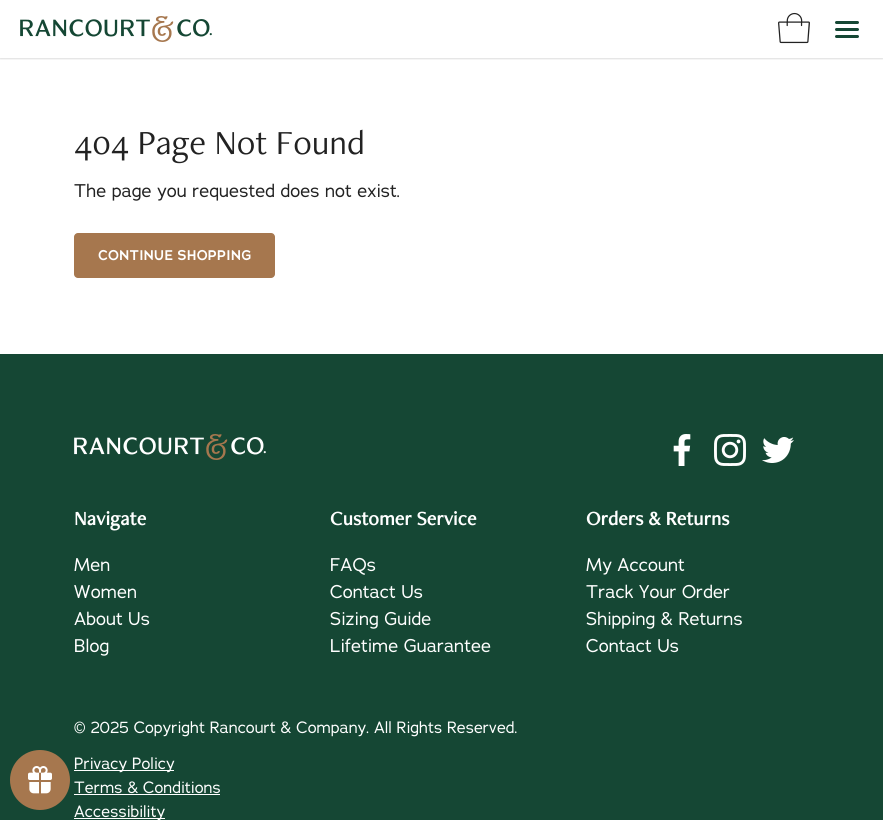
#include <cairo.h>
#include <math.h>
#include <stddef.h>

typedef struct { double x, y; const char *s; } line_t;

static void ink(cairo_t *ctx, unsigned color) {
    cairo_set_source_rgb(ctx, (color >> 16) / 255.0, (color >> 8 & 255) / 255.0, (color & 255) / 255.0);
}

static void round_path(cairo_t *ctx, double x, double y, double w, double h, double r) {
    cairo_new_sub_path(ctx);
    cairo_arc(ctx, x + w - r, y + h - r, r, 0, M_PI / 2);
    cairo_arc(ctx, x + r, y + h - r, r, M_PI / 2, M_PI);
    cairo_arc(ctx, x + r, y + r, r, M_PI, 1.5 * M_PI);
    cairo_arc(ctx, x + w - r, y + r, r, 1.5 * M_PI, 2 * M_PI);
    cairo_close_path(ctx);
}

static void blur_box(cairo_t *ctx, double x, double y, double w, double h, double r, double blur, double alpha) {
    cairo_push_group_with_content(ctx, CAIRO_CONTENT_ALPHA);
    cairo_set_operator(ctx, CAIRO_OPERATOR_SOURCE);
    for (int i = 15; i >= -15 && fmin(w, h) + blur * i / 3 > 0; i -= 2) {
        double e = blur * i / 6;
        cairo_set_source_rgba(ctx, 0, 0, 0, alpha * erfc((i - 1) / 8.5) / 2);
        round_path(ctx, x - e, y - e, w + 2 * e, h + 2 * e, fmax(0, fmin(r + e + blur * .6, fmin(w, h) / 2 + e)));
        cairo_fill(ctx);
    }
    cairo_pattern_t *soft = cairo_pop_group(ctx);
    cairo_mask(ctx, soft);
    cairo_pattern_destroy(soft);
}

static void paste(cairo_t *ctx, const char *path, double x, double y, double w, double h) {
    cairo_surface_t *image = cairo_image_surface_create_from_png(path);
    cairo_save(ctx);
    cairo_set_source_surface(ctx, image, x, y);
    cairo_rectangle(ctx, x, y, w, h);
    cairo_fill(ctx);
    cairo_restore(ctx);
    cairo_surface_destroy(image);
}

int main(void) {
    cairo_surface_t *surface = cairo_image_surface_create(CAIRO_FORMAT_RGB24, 883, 820);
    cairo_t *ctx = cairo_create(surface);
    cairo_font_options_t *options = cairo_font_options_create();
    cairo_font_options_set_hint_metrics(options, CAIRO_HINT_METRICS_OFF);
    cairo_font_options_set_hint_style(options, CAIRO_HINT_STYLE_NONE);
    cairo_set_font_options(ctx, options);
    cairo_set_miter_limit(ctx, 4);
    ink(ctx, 0xFFFFFF);
    cairo_paint(ctx);
    cairo_save(ctx);
    cairo_rectangle(ctx, 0, 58, 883, 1);
    cairo_clip(ctx);
    ink(ctx, 0x000000);
    blur_box(ctx, 0, 1, 883, 58, 0, 1, 0.06);
    cairo_restore(ctx);
    cairo_save(ctx);
    cairo_rectangle(ctx, 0, 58, 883, 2);
    cairo_clip(ctx);
    ink(ctx, 0x000000);
    blur_box(ctx, 0, 1, 883, 58, 0, 1.5, 0.1);
    cairo_restore(ctx);
    paste(ctx, "media/1.png", 20, 16, 192, 26);
    paste(ctx, "media/2.png", 778, 12, 32, 32);
    ink(ctx, 0x154734);
    round_path(ctx, 835, 21, 24, 3, 1.5);
    cairo_fill(ctx);
    round_path(ctx, 835, 28, 24, 3, 1.5);
    cairo_fill(ctx);
    round_path(ctx, 835, 35, 24, 3, 1.5);
    cairo_fill(ctx);
    cairo_select_font_face(ctx, "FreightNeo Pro", CAIRO_FONT_SLANT_NORMAL, CAIRO_FONT_WEIGHT_NORMAL);
    cairo_set_font_size(ctx, 35);
    ink(ctx, 0x222222);
    cairo_move_to(ctx, 74, 154);
    cairo_show_text(ctx, "404 Page Not Found");
    cairo_select_font_face(ctx, "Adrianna", CAIRO_FONT_SLANT_NORMAL, CAIRO_FONT_WEIGHT_NORMAL);
    cairo_set_font_size(ctx, 18);
    cairo_move_to(ctx, 74, 197);
    cairo_show_text(ctx, "The page you requested does not exist.");
    ink(ctx, 0xA6774E);
    round_path(ctx, 74, 233, 201, 45, 4);
    cairo_fill(ctx);
    cairo_select_font_face(ctx, "Adrianna SemiBold", CAIRO_FONT_SLANT_NORMAL, CAIRO_FONT_WEIGHT_NORMAL);
    cairo_set_font_size(ctx, 14);
    ink(ctx, 0xFFFFFF);
    cairo_move_to(ctx, 98, 260);
    cairo_show_text(ctx, "CONTINUE SHOPPING");
    ink(ctx, 0x154734);
    cairo_rectangle(ctx, 0, 354, 883, 466);
    cairo_fill(ctx);
    ink(ctx, 0xA6774E);
    cairo_arc(ctx, 40, 780, 30, 0, 2 * M_PI);
    cairo_fill(ctx);
    paste(ctx, "media/3.png", 28, 766, 24, 28);
    paste(ctx, "media/4.png", 74, 434, 192, 26);
    paste(ctx, "media/5.png", 673, 434, 18, 32);
    paste(ctx, "media/6.png", 714, 434, 32, 32);
    paste(ctx, "media/7.png", 762, 437, 32, 26);
    cairo_select_font_face(ctx, "FreightNeo Pro", CAIRO_FONT_SLANT_NORMAL, CAIRO_FONT_WEIGHT_BOLD);
    cairo_set_font_size(ctx, 20);
    ink(ctx, 0xFFFFFF);
    cairo_move_to(ctx, 74, 525);
    cairo_show_text(ctx, "Navigate");
    cairo_select_font_face(ctx, "Adrianna", CAIRO_FONT_SLANT_NORMAL, CAIRO_FONT_WEIGHT_NORMAL);
    cairo_set_font_size(ctx, 18);
    {
        static const line_t items[] = {
            {74, 571, "Men"},
            {74, 598, "Women"},
            {74, 625, "About Us"},
            {74, 652, "Blog"},
        };
        for (size_t i = 0; i < sizeof items / sizeof *items; i++) {
            cairo_move_to(ctx, items[i].x, items[i].y);
            cairo_show_text(ctx, items[i].s);
        }
    }
    cairo_select_font_face(ctx, "FreightNeo Pro", CAIRO_FONT_SLANT_NORMAL, CAIRO_FONT_WEIGHT_BOLD);
    cairo_set_font_size(ctx, 20);
    cairo_move_to(ctx, 330, 525);
    cairo_show_text(ctx, "Customer Service");
    cairo_select_font_face(ctx, "Adrianna", CAIRO_FONT_SLANT_NORMAL, CAIRO_FONT_WEIGHT_NORMAL);
    cairo_set_font_size(ctx, 18);
    {
        static const line_t items[] = {
            {330, 571, "FAQs"},
            {330, 598, "Contact Us"},
            {330, 625, "Sizing Guide"},
            {330, 652, "Lifetime Guarantee"},
        };
        for (size_t i = 0; i < sizeof items / sizeof *items; i++) {
            cairo_move_to(ctx, items[i].x, items[i].y);
            cairo_show_text(ctx, items[i].s);
        }
    }
    cairo_select_font_face(ctx, "FreightNeo Pro", CAIRO_FONT_SLANT_NORMAL, CAIRO_FONT_WEIGHT_BOLD);
    cairo_set_font_size(ctx, 20);
    cairo_move_to(ctx, 586, 525);
    cairo_show_text(ctx, "Orders & Returns");
    cairo_select_font_face(ctx, "Adrianna", CAIRO_FONT_SLANT_NORMAL, CAIRO_FONT_WEIGHT_NORMAL);
    cairo_set_font_size(ctx, 18);
    {
        static const line_t items[] = {
            {586, 571, "My Account"},
            {586, 598, "Track Your Order"},
            {586, 625, "Shipping & Returns"},
            {586, 652, "Contact Us"},
        };
        for (size_t i = 0; i < sizeof items / sizeof *items; i++) {
            cairo_move_to(ctx, items[i].x, items[i].y);
            cairo_show_text(ctx, items[i].s);
        }
    }
    cairo_set_font_size(ctx, 16);
    cairo_move_to(ctx, 74, 733);
    cairo_show_text(ctx, "© 2025 Copyright Rancourt & Company. All Rights Reserved.");
    cairo_rectangle(ctx, 74, 770, 100, 1);
    cairo_fill(ctx);
    cairo_move_to(ctx, 74, 769);
    cairo_show_text(ctx, "Privacy Policy");
    cairo_move_to(ctx, 74, 793);
    cairo_show_text(ctx, "Terms & Conditions");
    cairo_rectangle(ctx, 74, 794, 146, 1);
    cairo_fill(ctx);
    cairo_rectangle(ctx, 74, 818, 91, 1);
    cairo_fill(ctx);
    cairo_move_to(ctx, 74, 817);
    cairo_show_text(ctx, "Accessibility");
    cairo_surface_write_to_png(surface, "image.png");
    cairo_font_options_destroy(options);
    cairo_destroy(ctx);
    cairo_surface_destroy(surface);
    return 0;
}
